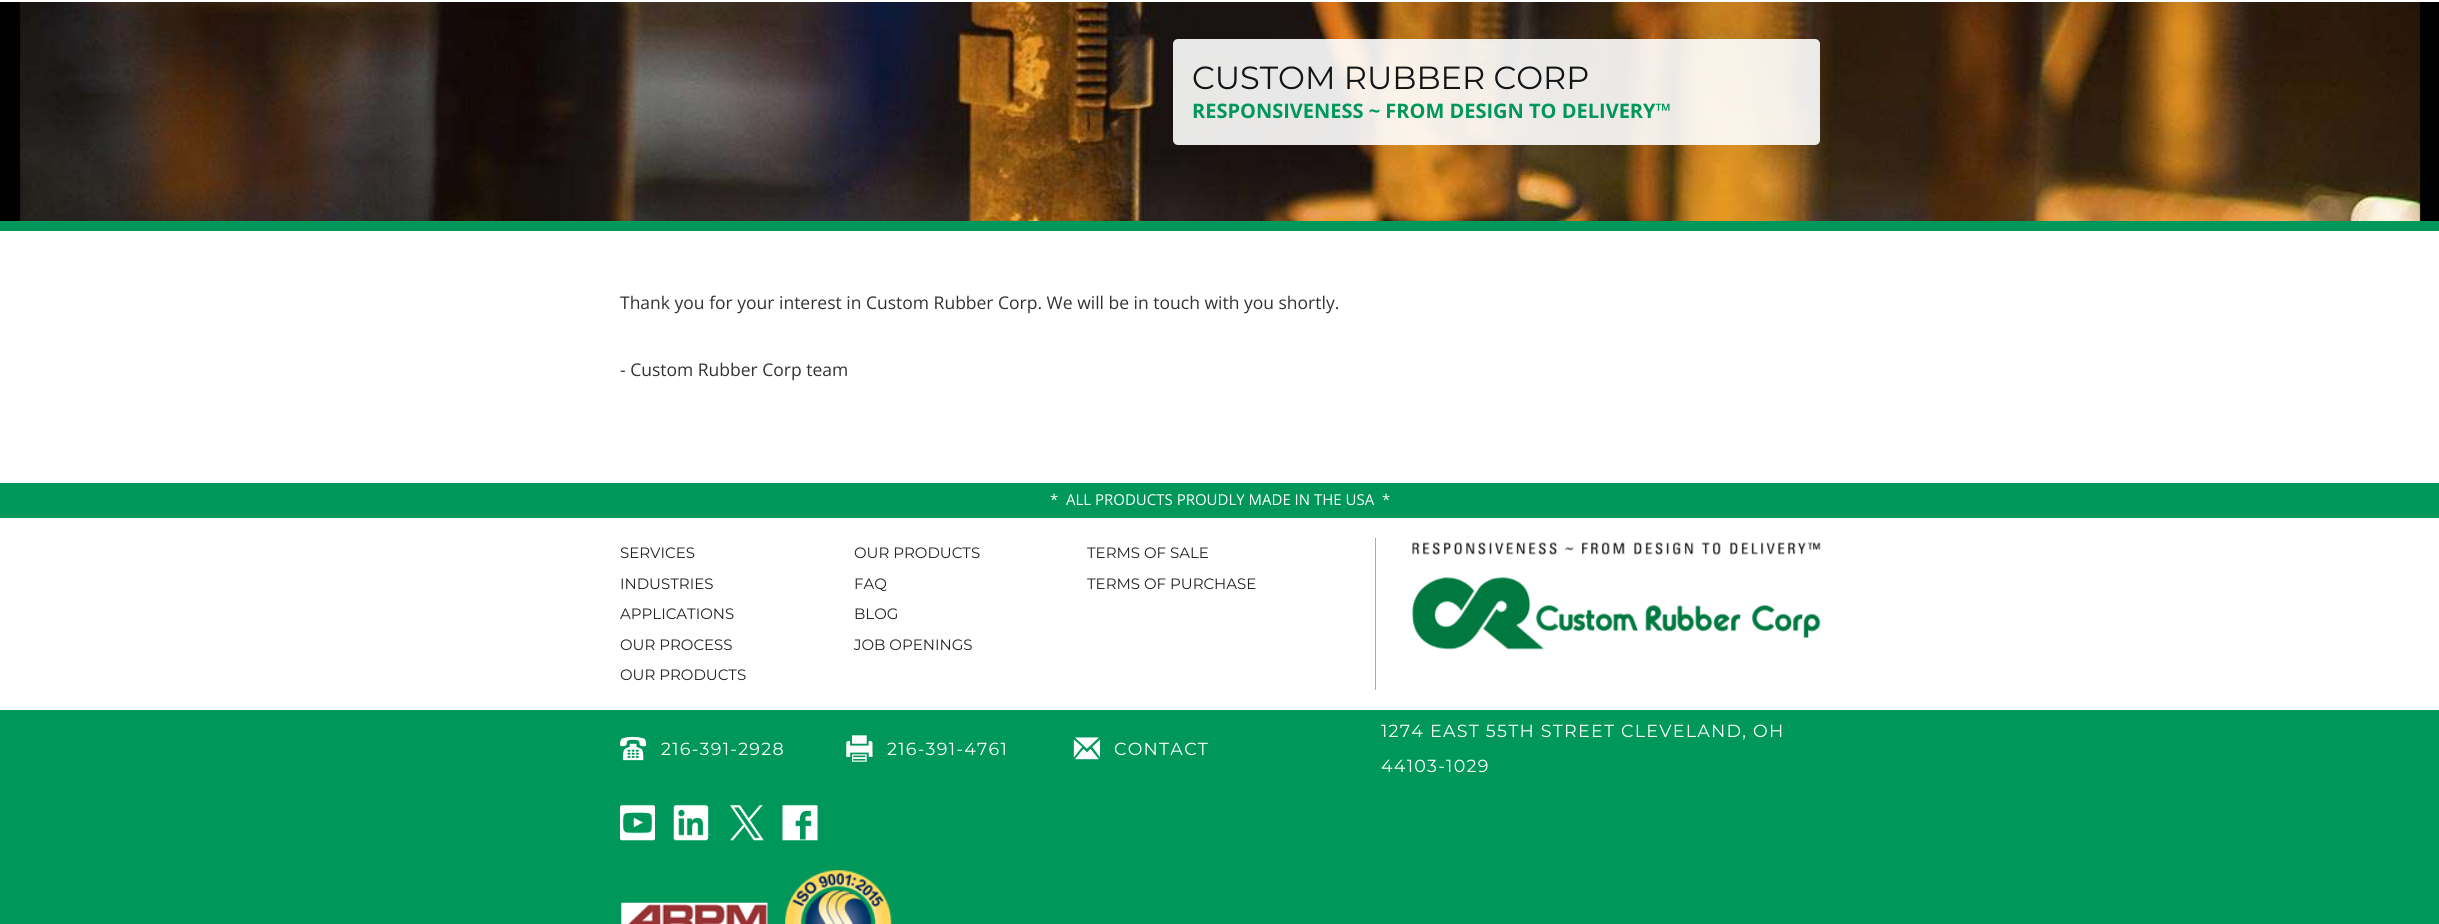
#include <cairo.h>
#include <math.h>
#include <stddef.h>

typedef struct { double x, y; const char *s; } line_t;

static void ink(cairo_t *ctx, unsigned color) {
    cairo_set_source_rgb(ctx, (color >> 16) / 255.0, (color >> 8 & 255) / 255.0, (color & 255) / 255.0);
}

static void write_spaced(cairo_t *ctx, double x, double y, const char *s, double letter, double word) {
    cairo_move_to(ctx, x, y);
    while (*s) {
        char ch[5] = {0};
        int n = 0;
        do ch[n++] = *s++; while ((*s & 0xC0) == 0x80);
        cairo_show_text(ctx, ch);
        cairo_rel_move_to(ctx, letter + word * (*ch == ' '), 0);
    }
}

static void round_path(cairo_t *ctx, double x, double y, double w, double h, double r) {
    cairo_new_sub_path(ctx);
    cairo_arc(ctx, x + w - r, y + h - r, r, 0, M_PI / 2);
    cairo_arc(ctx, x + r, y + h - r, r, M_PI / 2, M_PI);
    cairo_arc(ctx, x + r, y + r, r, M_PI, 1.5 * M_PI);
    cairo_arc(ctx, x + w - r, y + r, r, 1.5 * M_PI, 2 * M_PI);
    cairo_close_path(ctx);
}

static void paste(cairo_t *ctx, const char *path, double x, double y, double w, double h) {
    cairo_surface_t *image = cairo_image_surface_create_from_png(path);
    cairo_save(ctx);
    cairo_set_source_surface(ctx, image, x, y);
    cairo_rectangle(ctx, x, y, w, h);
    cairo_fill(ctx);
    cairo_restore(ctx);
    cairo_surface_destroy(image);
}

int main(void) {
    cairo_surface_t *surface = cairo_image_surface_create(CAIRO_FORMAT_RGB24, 2439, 924);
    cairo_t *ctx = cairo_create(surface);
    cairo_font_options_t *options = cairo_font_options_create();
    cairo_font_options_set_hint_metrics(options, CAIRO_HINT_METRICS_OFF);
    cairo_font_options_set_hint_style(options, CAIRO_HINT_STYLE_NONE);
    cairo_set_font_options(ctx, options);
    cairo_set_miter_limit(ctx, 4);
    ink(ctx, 0xFFFFFF);
    cairo_paint(ctx);
    ink(ctx, 0x000000);
    cairo_rectangle(ctx, 0, 2, 2439, 219);
    cairo_fill(ctx);
    paste(ctx, "media/1.png", 19, 2, 2402, 219);
    cairo_set_source_rgba(ctx, 1, 1, 1, 0.9);
    round_path(ctx, 1173, 39, 647, 106, 5);
    cairo_fill(ctx);
    cairo_select_font_face(ctx, "Montserrat", CAIRO_FONT_SLANT_NORMAL, CAIRO_FONT_WEIGHT_NORMAL);
    cairo_set_font_size(ctx, 32);
    ink(ctx, 0x141414);
    cairo_move_to(ctx, 1192, 89);
    cairo_show_text(ctx, "CUSTOM RUBBER CORP");
    cairo_select_font_face(ctx, "Open Sans", CAIRO_FONT_SLANT_NORMAL, CAIRO_FONT_WEIGHT_BOLD);
    cairo_set_font_size(ctx, 20);
    ink(ctx, 0x00985A);
    cairo_move_to(ctx, 1192, 118);
    cairo_show_text(ctx, "RESPONSIVENESS ~ FROM DESIGN TO DELIVERY™");
    cairo_rectangle(ctx, 0, 221, 2439, 10);
    cairo_fill(ctx);
    cairo_rectangle(ctx, 0, 483, 2439, 35);
    cairo_fill(ctx);
    cairo_select_font_face(ctx, "Open Sans", CAIRO_FONT_SLANT_NORMAL, CAIRO_FONT_WEIGHT_NORMAL);
    cairo_set_font_size(ctx, 17.5);
    ink(ctx, 0x333333);
    cairo_move_to(ctx, 620, 309);
    cairo_show_text(ctx, "Thank you for your interest in Custom Rubber Corp. We will be in touch with you shortly.");
    cairo_move_to(ctx, 620, 376);
    cairo_show_text(ctx, "- Custom Rubber Corp team");
    cairo_set_font_size(ctx, 15);
    ink(ctx, 0xFFFFFF);
    {
        static const line_t items[] = {
            {1050, 505, "*"},
            {1066, 505, "ALL PRODUCTS PROUDLY MADE IN THE USA"},
            {1382, 505, "*"},
        };
        for (size_t i = 0; i < sizeof items / sizeof *items; i++) {
            cairo_move_to(ctx, items[i].x, items[i].y);
            cairo_show_text(ctx, items[i].s);
        }
    }
    cairo_select_font_face(ctx, "Montserrat", CAIRO_FONT_SLANT_NORMAL, CAIRO_FONT_WEIGHT_NORMAL);
    ink(ctx, 0x222222);
    {
        static const line_t items[] = {
            {620, 558, "SERVICES"},
            {620, 589, "INDUSTRIES"},
            {620, 619, "APPLICATIONS"},
            {620, 650, "OUR PROCESS"},
            {620, 680, "OUR PRODUCTS"},
            {854, 558, "OUR PRODUCTS"},
            {854, 589, "FAQ"},
            {854, 619, "BLOG"},
            {854, 650, "JOB OPENINGS"},
            {1087, 558, "TERMS OF SALE"},
            {1087, 589, "TERMS OF PURCHASE"},
        };
        for (size_t i = 0; i < sizeof items / sizeof *items; i++) {
            cairo_move_to(ctx, items[i].x, items[i].y);
            cairo_show_text(ctx, items[i].s);
        }
    }
    ink(ctx, 0xAAAAAA);
    cairo_rectangle(ctx, 1375, 538, 1, 152);
    cairo_fill(ctx);
    paste(ctx, "media/2.png", 1412, 542, 409, 108);
    ink(ctx, 0x00985A);
    cairo_rectangle(ctx, 0, 710, 2439, 214);
    cairo_fill(ctx);
    paste(ctx, "media/3.png", 620, 736, 27, 25);
    cairo_set_font_size(ctx, 17.5);
    ink(ctx, 0xFFFFFF);
    write_spaced(ctx, 661, 755, "216-391-2928", 1.25, 0);
    paste(ctx, "media/4.png", 846, 735, 27, 27);
    write_spaced(ctx, 887, 755, "216-391-4761", 1.25, 0);
    paste(ctx, "media/5.png", 1073, 737, 27, 23);
    {
        static const line_t items[] = {
            {1114, 755, "CONTACT"},
            {1381, 737, "1274 EAST 55TH STREET CLEVELAND, OH"},
            {1381, 772, "44103-1029"},
        };
        for (size_t i = 0; i < sizeof items / sizeof *items; i++) {
            write_spaced(ctx, items[i].x, items[i].y, items[i].s, 1.25, 0);
        }
    }
    paste(ctx, "media/6.png", 620, 805, 35, 36);
    paste(ctx, "media/7.png", 673, 805, 39, 36);
    paste(ctx, "media/8.png", 730, 805, 34, 36);
    paste(ctx, "media/9.png", 782, 805, 36, 36);
    paste(ctx, "media/10.png", 621, 902, 147, 22);
    paste(ctx, "media/11.png", 785, 870, 107, 54);
    cairo_surface_write_to_png(surface, "image.png");
    cairo_font_options_destroy(options);
    cairo_destroy(ctx);
    cairo_surface_destroy(surface);
    return 0;
}
